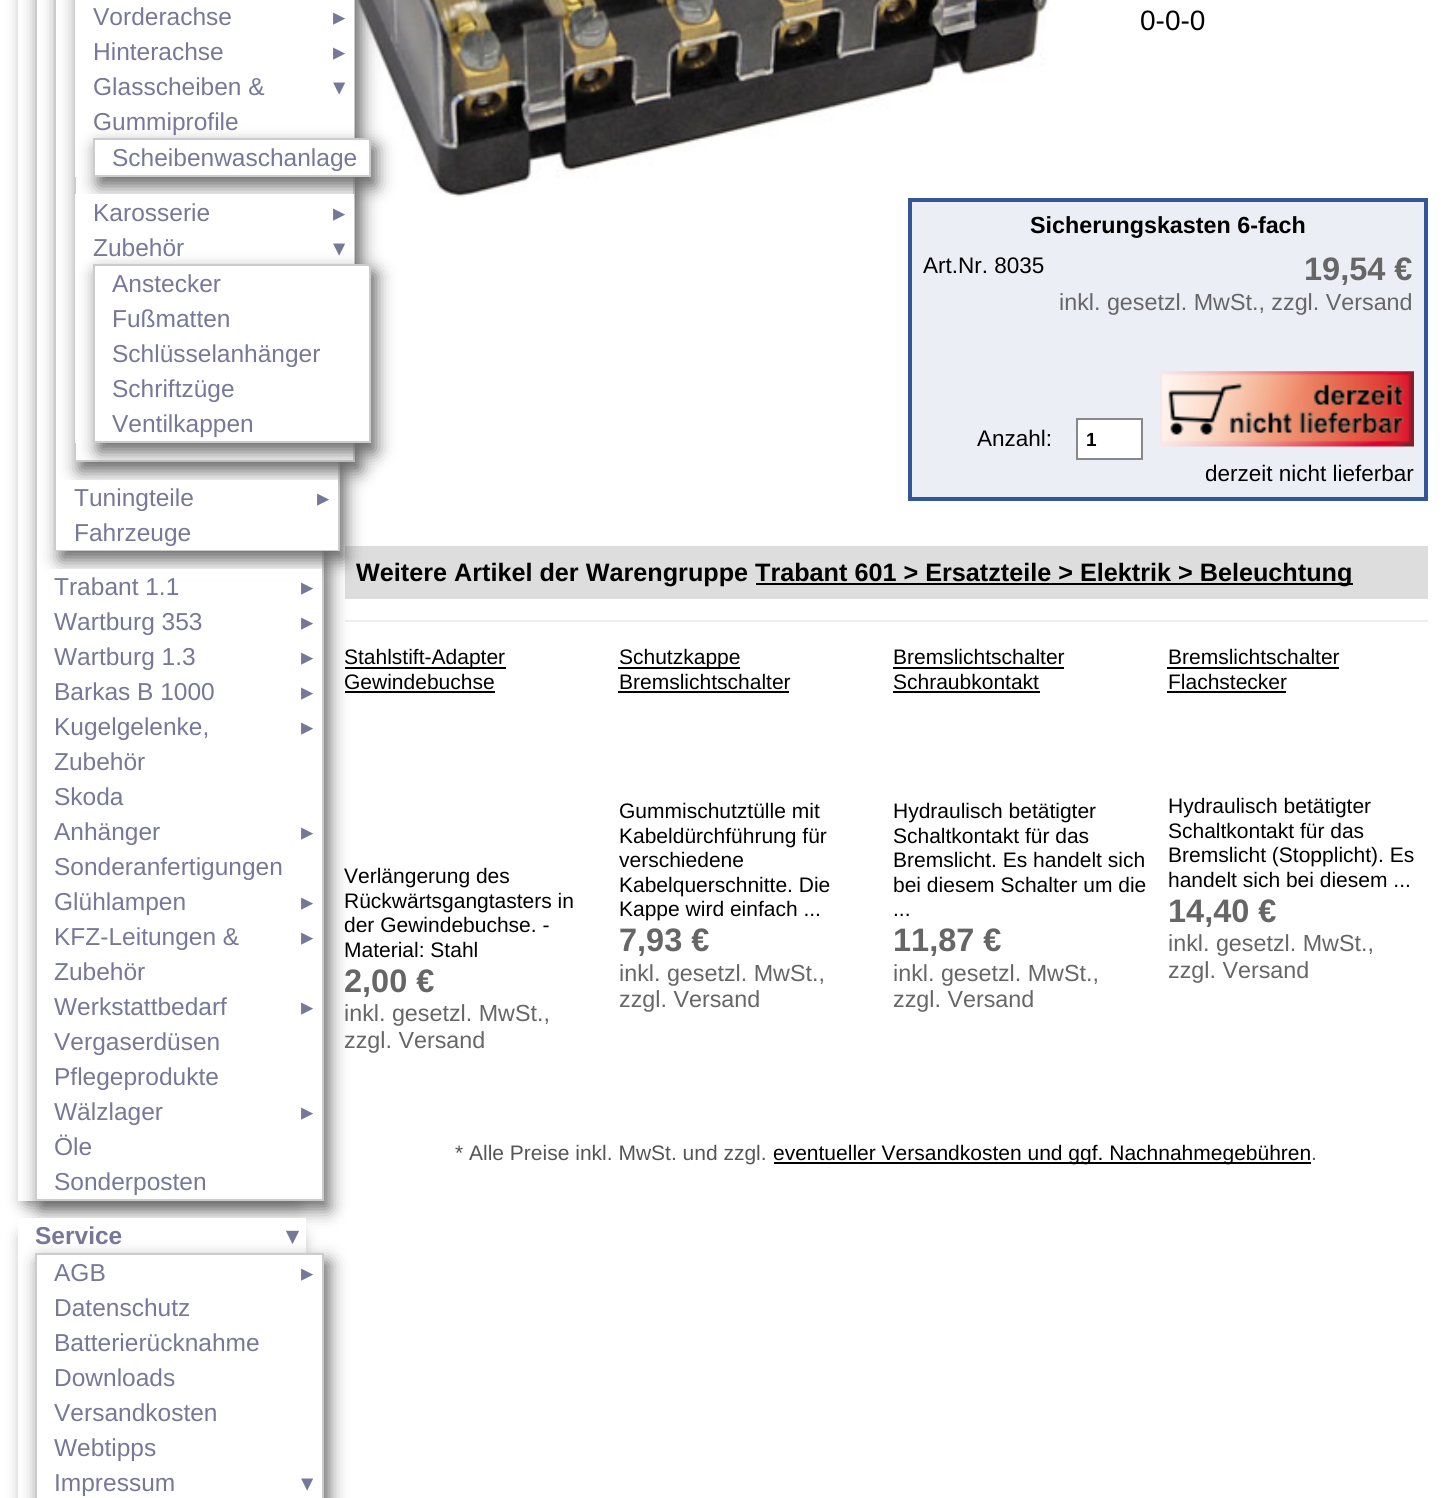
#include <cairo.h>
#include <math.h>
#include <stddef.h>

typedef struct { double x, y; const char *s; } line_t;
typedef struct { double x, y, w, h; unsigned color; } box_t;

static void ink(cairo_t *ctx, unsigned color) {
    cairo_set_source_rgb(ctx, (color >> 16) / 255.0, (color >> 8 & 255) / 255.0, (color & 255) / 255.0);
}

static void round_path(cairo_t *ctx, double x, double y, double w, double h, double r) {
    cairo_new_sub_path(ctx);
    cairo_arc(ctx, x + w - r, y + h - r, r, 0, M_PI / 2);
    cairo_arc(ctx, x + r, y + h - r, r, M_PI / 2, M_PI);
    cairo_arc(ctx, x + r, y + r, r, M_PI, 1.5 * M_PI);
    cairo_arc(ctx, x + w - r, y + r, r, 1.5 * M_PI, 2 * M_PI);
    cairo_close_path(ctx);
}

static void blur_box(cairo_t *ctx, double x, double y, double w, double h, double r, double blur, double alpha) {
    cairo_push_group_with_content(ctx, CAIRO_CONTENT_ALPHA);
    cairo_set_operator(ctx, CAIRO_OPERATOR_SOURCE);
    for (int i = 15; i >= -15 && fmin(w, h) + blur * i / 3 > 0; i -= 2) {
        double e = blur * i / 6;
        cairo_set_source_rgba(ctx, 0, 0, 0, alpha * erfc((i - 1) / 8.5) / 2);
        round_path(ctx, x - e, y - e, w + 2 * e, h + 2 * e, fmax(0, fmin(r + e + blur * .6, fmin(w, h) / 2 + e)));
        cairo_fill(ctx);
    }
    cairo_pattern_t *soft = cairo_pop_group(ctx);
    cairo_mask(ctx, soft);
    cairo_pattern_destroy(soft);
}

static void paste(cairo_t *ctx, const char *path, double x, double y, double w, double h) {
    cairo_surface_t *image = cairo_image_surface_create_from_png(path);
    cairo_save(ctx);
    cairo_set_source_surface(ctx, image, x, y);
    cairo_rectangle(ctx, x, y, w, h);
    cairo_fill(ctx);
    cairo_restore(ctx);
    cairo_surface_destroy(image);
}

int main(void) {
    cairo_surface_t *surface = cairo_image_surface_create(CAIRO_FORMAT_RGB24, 1444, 1498);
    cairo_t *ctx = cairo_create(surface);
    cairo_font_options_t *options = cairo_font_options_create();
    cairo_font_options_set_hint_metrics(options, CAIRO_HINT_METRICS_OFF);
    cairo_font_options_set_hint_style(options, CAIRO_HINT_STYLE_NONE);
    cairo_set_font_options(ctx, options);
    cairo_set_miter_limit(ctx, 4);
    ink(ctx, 0xFFFFFF);
    cairo_paint(ctx);
    ink(ctx, 0x666666);
    blur_box(ctx, 26, -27, 272, 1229, 0, 9, 1);
    ink(ctx, 0xFFFFFF);
    cairo_rectangle(ctx, 18, 0, 17, 1201);
    cairo_fill(ctx);
    paste(ctx, "media/1.png", 356, 0, 694, 197);
    {
        static const box_t items[] = {
            {345, 546, 1083, 53, 0xDDDDDD},
            {345, 620, 1083, 2, 0xEEEEEE},
            {345, 667, 161, 2, 0x000000},
            {345, 691, 150, 2, 0x000000},
        };
        for (size_t i = 0; i < sizeof items / sizeof *items; i++) {
            ink(ctx, items[i].color);
            cairo_rectangle(ctx, items[i].x, items[i].y, items[i].w, items[i].h);
            cairo_fill(ctx);
        }
    }
    ink(ctx, 0x666666);
    blur_box(ctx, 40, -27, 289, 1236, 0, 9, 1);
    ink(ctx, 0xFFFFFF);
    cairo_rectangle(ctx, 36, -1, 287, 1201);
    cairo_fill_preserve(ctx);
    ink(ctx, 0xCCCCCC);
    cairo_stroke(ctx);
    ink(ctx, 0x666666);
    blur_box(ctx, 60, -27, 285, 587, 0, 9, 1);
    ink(ctx, 0xFFFFFF);
    cairo_rectangle(ctx, 56, 0, 282, 480);
    cairo_fill(ctx);
    cairo_rectangle(ctx, 55, -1, 284, 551);
    ink(ctx, 0xCCCCCC);
    cairo_stroke(ctx);
    ink(ctx, 0x666666);
    blur_box(ctx, 79, -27, 282, 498, 0, 9, 1);
    ink(ctx, 0xFFFFFF);
    cairo_rectangle(ctx, 76, 177, 277, 283);
    cairo_fill(ctx);
    cairo_rectangle(ctx, 75, -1, 279, 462);
    ink(ctx, 0xCCCCCC);
    cairo_stroke(ctx);
    ink(ctx, 0xFFFFFF);
    cairo_rectangle(ctx, 75, 0, 279, 177);
    cairo_fill(ctx);
    cairo_select_font_face(ctx, "Liberation Sans", CAIRO_FONT_SLANT_NORMAL, CAIRO_FONT_WEIGHT_NORMAL);
    cairo_set_font_size(ctx, 24.5);
    ink(ctx, 0x777799);
    cairo_move_to(ctx, 93, 25);
    cairo_show_text(ctx, "Vorderachse");
    cairo_select_font_face(ctx, "DejaVu Sans", CAIRO_FONT_SLANT_NORMAL, CAIRO_FONT_WEIGHT_NORMAL);
    cairo_move_to(ctx, 333, 25);
    cairo_show_text(ctx, "▸");
    cairo_select_font_face(ctx, "Liberation Sans", CAIRO_FONT_SLANT_NORMAL, CAIRO_FONT_WEIGHT_NORMAL);
    cairo_move_to(ctx, 93, 60);
    cairo_show_text(ctx, "Hinterachse");
    cairo_select_font_face(ctx, "DejaVu Sans", CAIRO_FONT_SLANT_NORMAL, CAIRO_FONT_WEIGHT_NORMAL);
    cairo_move_to(ctx, 333, 60);
    cairo_show_text(ctx, "▸");
    cairo_select_font_face(ctx, "Liberation Sans", CAIRO_FONT_SLANT_NORMAL, CAIRO_FONT_WEIGHT_NORMAL);
    cairo_move_to(ctx, 93, 95);
    cairo_show_text(ctx, "Glasscheiben &");
    cairo_select_font_face(ctx, "DejaVu Sans", CAIRO_FONT_SLANT_NORMAL, CAIRO_FONT_WEIGHT_NORMAL);
    cairo_move_to(ctx, 333, 95);
    cairo_show_text(ctx, "▾");
    cairo_select_font_face(ctx, "Liberation Sans", CAIRO_FONT_SLANT_NORMAL, CAIRO_FONT_WEIGHT_NORMAL);
    cairo_move_to(ctx, 93, 130);
    cairo_show_text(ctx, "Gummiprofile");
    ink(ctx, 0x666666);
    blur_box(ctx, 98, 147, 278, 39, 0, 9, 1);
    ink(ctx, 0xFFFFFF);
    cairo_rectangle(ctx, 94, 139, 276, 37);
    cairo_fill_preserve(ctx);
    ink(ctx, 0xCCCCCC);
    cairo_stroke(ctx);
    ink(ctx, 0x777799);
    cairo_move_to(ctx, 112, 166);
    cairo_show_text(ctx, "Scheibenwaschanlage");
    ink(ctx, 0xFFFFFF);
    cairo_rectangle(ctx, 75, 194, 279, 249);
    cairo_fill(ctx);
    ink(ctx, 0x777799);
    cairo_move_to(ctx, 93, 221);
    cairo_show_text(ctx, "Karosserie");
    cairo_select_font_face(ctx, "DejaVu Sans", CAIRO_FONT_SLANT_NORMAL, CAIRO_FONT_WEIGHT_NORMAL);
    cairo_move_to(ctx, 333, 221);
    cairo_show_text(ctx, "▸");
    cairo_select_font_face(ctx, "Liberation Sans", CAIRO_FONT_SLANT_NORMAL, CAIRO_FONT_WEIGHT_NORMAL);
    cairo_move_to(ctx, 93, 256);
    cairo_show_text(ctx, "Zubehör");
    cairo_select_font_face(ctx, "DejaVu Sans", CAIRO_FONT_SLANT_NORMAL, CAIRO_FONT_WEIGHT_NORMAL);
    cairo_move_to(ctx, 333, 256);
    cairo_show_text(ctx, "▾");
    ink(ctx, 0x666666);
    blur_box(ctx, 98, 273, 278, 179, 0, 9, 1);
    ink(ctx, 0xFFFFFF);
    cairo_rectangle(ctx, 94, 265, 276, 177);
    cairo_fill_preserve(ctx);
    ink(ctx, 0xCCCCCC);
    cairo_stroke(ctx);
    cairo_select_font_face(ctx, "Liberation Sans", CAIRO_FONT_SLANT_NORMAL, CAIRO_FONT_WEIGHT_NORMAL);
    ink(ctx, 0x777799);
    {
        static const line_t items[] = {
            {112, 292, "Anstecker"},
            {112, 327, "Fußmatten"},
            {112, 362, "Schlüsselanhänger"},
            {112, 397, "Schriftzüge"},
            {112, 432, "Ventilkappen"},
        };
        for (size_t i = 0; i < sizeof items / sizeof *items; i++) {
            cairo_move_to(ctx, items[i].x, items[i].y);
            cairo_show_text(ctx, items[i].s);
        }
    }
    ink(ctx, 0xFFFFFF);
    cairo_rectangle(ctx, 56, 480, 282, 70);
    cairo_fill(ctx);
    ink(ctx, 0x777799);
    cairo_move_to(ctx, 74, 506);
    cairo_show_text(ctx, "Tuningteile");
    cairo_select_font_face(ctx, "DejaVu Sans", CAIRO_FONT_SLANT_NORMAL, CAIRO_FONT_WEIGHT_NORMAL);
    cairo_move_to(ctx, 317, 506);
    cairo_show_text(ctx, "▸");
    cairo_select_font_face(ctx, "Liberation Sans", CAIRO_FONT_SLANT_NORMAL, CAIRO_FONT_WEIGHT_NORMAL);
    cairo_move_to(ctx, 74, 541);
    cairo_show_text(ctx, "Fahrzeuge");
    ink(ctx, 0xFFFFFF);
    cairo_rectangle(ctx, 49, 569, 273, 10);
    cairo_fill(ctx);
    ink(ctx, 0x777799);
    cairo_move_to(ctx, 54, 595);
    cairo_show_text(ctx, "Trabant 1.1");
    cairo_select_font_face(ctx, "DejaVu Sans", CAIRO_FONT_SLANT_NORMAL, CAIRO_FONT_WEIGHT_NORMAL);
    cairo_move_to(ctx, 301, 595);
    cairo_show_text(ctx, "▸");
    cairo_select_font_face(ctx, "Liberation Sans", CAIRO_FONT_SLANT_NORMAL, CAIRO_FONT_WEIGHT_NORMAL);
    cairo_move_to(ctx, 54, 630);
    cairo_show_text(ctx, "Wartburg 353");
    cairo_select_font_face(ctx, "DejaVu Sans", CAIRO_FONT_SLANT_NORMAL, CAIRO_FONT_WEIGHT_NORMAL);
    cairo_move_to(ctx, 301, 630);
    cairo_show_text(ctx, "▸");
    cairo_select_font_face(ctx, "Liberation Sans", CAIRO_FONT_SLANT_NORMAL, CAIRO_FONT_WEIGHT_NORMAL);
    cairo_move_to(ctx, 54, 665);
    cairo_show_text(ctx, "Wartburg 1.3");
    cairo_select_font_face(ctx, "DejaVu Sans", CAIRO_FONT_SLANT_NORMAL, CAIRO_FONT_WEIGHT_NORMAL);
    cairo_move_to(ctx, 301, 665);
    cairo_show_text(ctx, "▸");
    cairo_select_font_face(ctx, "Liberation Sans", CAIRO_FONT_SLANT_NORMAL, CAIRO_FONT_WEIGHT_NORMAL);
    cairo_move_to(ctx, 54, 700);
    cairo_show_text(ctx, "Barkas B 1000");
    cairo_select_font_face(ctx, "DejaVu Sans", CAIRO_FONT_SLANT_NORMAL, CAIRO_FONT_WEIGHT_NORMAL);
    cairo_move_to(ctx, 301, 700);
    cairo_show_text(ctx, "▸");
    cairo_select_font_face(ctx, "Liberation Sans", CAIRO_FONT_SLANT_NORMAL, CAIRO_FONT_WEIGHT_NORMAL);
    cairo_move_to(ctx, 54, 735);
    cairo_show_text(ctx, "Kugelgelenke,");
    cairo_select_font_face(ctx, "DejaVu Sans", CAIRO_FONT_SLANT_NORMAL, CAIRO_FONT_WEIGHT_NORMAL);
    cairo_move_to(ctx, 301, 735);
    cairo_show_text(ctx, "▸");
    cairo_select_font_face(ctx, "Liberation Sans", CAIRO_FONT_SLANT_NORMAL, CAIRO_FONT_WEIGHT_NORMAL);
    {
        static const line_t items[] = {
            {54, 770, "Zubehör"},
            {54, 805, "Skoda"},
            {54, 840, "Anhänger"},
        };
        for (size_t i = 0; i < sizeof items / sizeof *items; i++) {
            cairo_move_to(ctx, items[i].x, items[i].y);
            cairo_show_text(ctx, items[i].s);
        }
    }
    cairo_select_font_face(ctx, "DejaVu Sans", CAIRO_FONT_SLANT_NORMAL, CAIRO_FONT_WEIGHT_NORMAL);
    cairo_move_to(ctx, 301, 840);
    cairo_show_text(ctx, "▸");
    cairo_select_font_face(ctx, "Liberation Sans", CAIRO_FONT_SLANT_NORMAL, CAIRO_FONT_WEIGHT_NORMAL);
    cairo_move_to(ctx, 54, 875);
    cairo_show_text(ctx, "Sonderanfertigungen");
    cairo_move_to(ctx, 54, 910);
    cairo_show_text(ctx, "Glühlampen");
    cairo_select_font_face(ctx, "DejaVu Sans", CAIRO_FONT_SLANT_NORMAL, CAIRO_FONT_WEIGHT_NORMAL);
    cairo_move_to(ctx, 301, 910);
    cairo_show_text(ctx, "▸");
    cairo_select_font_face(ctx, "Liberation Sans", CAIRO_FONT_SLANT_NORMAL, CAIRO_FONT_WEIGHT_NORMAL);
    cairo_move_to(ctx, 54, 945);
    cairo_show_text(ctx, "KFZ-Leitungen &");
    cairo_select_font_face(ctx, "DejaVu Sans", CAIRO_FONT_SLANT_NORMAL, CAIRO_FONT_WEIGHT_NORMAL);
    cairo_move_to(ctx, 301, 945);
    cairo_show_text(ctx, "▸");
    cairo_select_font_face(ctx, "Liberation Sans", CAIRO_FONT_SLANT_NORMAL, CAIRO_FONT_WEIGHT_NORMAL);
    cairo_move_to(ctx, 54, 980);
    cairo_show_text(ctx, "Zubehör");
    cairo_move_to(ctx, 54, 1015);
    cairo_show_text(ctx, "Werkstattbedarf");
    cairo_select_font_face(ctx, "DejaVu Sans", CAIRO_FONT_SLANT_NORMAL, CAIRO_FONT_WEIGHT_NORMAL);
    cairo_move_to(ctx, 301, 1015);
    cairo_show_text(ctx, "▸");
    cairo_select_font_face(ctx, "Liberation Sans", CAIRO_FONT_SLANT_NORMAL, CAIRO_FONT_WEIGHT_NORMAL);
    {
        static const line_t items[] = {
            {54, 1050, "Vergaserdüsen"},
            {54, 1085, "Pflegeprodukte"},
            {54, 1120, "Wälzlager"},
        };
        for (size_t i = 0; i < sizeof items / sizeof *items; i++) {
            cairo_move_to(ctx, items[i].x, items[i].y);
            cairo_show_text(ctx, items[i].s);
        }
    }
    cairo_select_font_face(ctx, "DejaVu Sans", CAIRO_FONT_SLANT_NORMAL, CAIRO_FONT_WEIGHT_NORMAL);
    cairo_move_to(ctx, 301, 1120);
    cairo_show_text(ctx, "▸");
    cairo_select_font_face(ctx, "Liberation Sans", CAIRO_FONT_SLANT_NORMAL, CAIRO_FONT_WEIGHT_NORMAL);
    cairo_move_to(ctx, 54, 1155);
    cairo_show_text(ctx, "Öle");
    cairo_move_to(ctx, 54, 1190);
    cairo_show_text(ctx, "Sonderposten");
    ink(ctx, 0x666666);
    blur_box(ctx, 26, 1237, 272, 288, 0, 9, 1);
    ink(ctx, 0xFFFFFF);
    cairo_rectangle(ctx, 18, 1218, 288, 280);
    cairo_fill(ctx);
    cairo_select_font_face(ctx, "Liberation Sans", CAIRO_FONT_SLANT_NORMAL, CAIRO_FONT_WEIGHT_BOLD);
    ink(ctx, 0x777799);
    cairo_move_to(ctx, 35, 1244);
    cairo_show_text(ctx, "Service");
    cairo_select_font_face(ctx, "DejaVu Sans", CAIRO_FONT_SLANT_NORMAL, CAIRO_FONT_WEIGHT_BOLD);
    cairo_move_to(ctx, 286, 1244);
    cairo_show_text(ctx, "▾");
    ink(ctx, 0x666666);
    blur_box(ctx, 40, 1262, 289, 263, 0, 9, 1);
    ink(ctx, 0xFFFFFF);
    cairo_rectangle(ctx, 36, 1254, 287, 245);
    cairo_fill_preserve(ctx);
    ink(ctx, 0xCCCCCC);
    cairo_stroke(ctx);
    cairo_select_font_face(ctx, "Liberation Sans", CAIRO_FONT_SLANT_NORMAL, CAIRO_FONT_WEIGHT_NORMAL);
    ink(ctx, 0x777799);
    cairo_move_to(ctx, 54, 1281);
    cairo_show_text(ctx, "AGB");
    cairo_select_font_face(ctx, "DejaVu Sans", CAIRO_FONT_SLANT_NORMAL, CAIRO_FONT_WEIGHT_NORMAL);
    cairo_move_to(ctx, 301, 1281);
    cairo_show_text(ctx, "▸");
    cairo_select_font_face(ctx, "Liberation Sans", CAIRO_FONT_SLANT_NORMAL, CAIRO_FONT_WEIGHT_NORMAL);
    {
        static const line_t items[] = {
            {54, 1316, "Datenschutz"},
            {54, 1351, "Batterierücknahme"},
            {54, 1386, "Downloads"},
            {54, 1421, "Versandkosten"},
            {54, 1456, "Webtipps"},
            {54, 1491, "Impressum"},
        };
        for (size_t i = 0; i < sizeof items / sizeof *items; i++) {
            cairo_move_to(ctx, items[i].x, items[i].y);
            cairo_show_text(ctx, items[i].s);
        }
    }
    cairo_select_font_face(ctx, "DejaVu Sans", CAIRO_FONT_SLANT_NORMAL, CAIRO_FONT_WEIGHT_NORMAL);
    cairo_move_to(ctx, 301, 1491);
    cairo_show_text(ctx, "▾");
    cairo_select_font_face(ctx, "Liberation Sans", CAIRO_FONT_SLANT_NORMAL, CAIRO_FONT_WEIGHT_NORMAL);
    cairo_set_font_size(ctx, 28);
    ink(ctx, 0x000000);
    cairo_move_to(ctx, 1140, 30);
    cairo_show_text(ctx, "0-0-0");
    ink(ctx, 0xECEEF5);
    cairo_rectangle(ctx, 910, 200, 516, 299);
    cairo_fill_preserve(ctx);
    ink(ctx, 0x335599);
    cairo_set_line_width(ctx, 4);
    cairo_stroke(ctx);
    cairo_select_font_face(ctx, "Liberation Sans", CAIRO_FONT_SLANT_NORMAL, CAIRO_FONT_WEIGHT_BOLD);
    cairo_set_font_size(ctx, 23.3);
    ink(ctx, 0x000000);
    cairo_move_to(ctx, 1030, 233);
    cairo_show_text(ctx, "Sicherungskasten 6-fach");
    cairo_select_font_face(ctx, "Liberation Sans", CAIRO_FONT_SLANT_NORMAL, CAIRO_FONT_WEIGHT_NORMAL);
    cairo_set_font_size(ctx, 22.5);
    cairo_move_to(ctx, 923, 273);
    cairo_show_text(ctx, "Art.Nr. 8035");
    cairo_select_font_face(ctx, "Liberation Sans", CAIRO_FONT_SLANT_NORMAL, CAIRO_FONT_WEIGHT_BOLD);
    cairo_set_font_size(ctx, 32.5);
    ink(ctx, 0x666666);
    cairo_move_to(ctx, 1304, 280);
    cairo_show_text(ctx, "19,54 €");
    cairo_select_font_face(ctx, "Liberation Sans", CAIRO_FONT_SLANT_NORMAL, CAIRO_FONT_WEIGHT_NORMAL);
    cairo_set_font_size(ctx, 23.3);
    cairo_move_to(ctx, 1059, 310);
    cairo_show_text(ctx, "inkl. gesetzl. MwSt., zzgl. Versand");
    cairo_set_font_size(ctx, 22.5);
    ink(ctx, 0x000000);
    cairo_move_to(ctx, 977, 446);
    cairo_show_text(ctx, "Anzahl:");
    ink(ctx, 0xFFFFFF);
    cairo_rectangle(ctx, 1077, 419, 65, 40);
    cairo_fill_preserve(ctx);
    ink(ctx, 0x888888);
    cairo_set_line_width(ctx, 2);
    cairo_stroke(ctx);
    cairo_select_font_face(ctx, "Liberation Sans", CAIRO_FONT_SLANT_NORMAL, CAIRO_FONT_WEIGHT_BOLD);
    cairo_set_font_size(ctx, 19);
    ink(ctx, 0x000000);
    cairo_move_to(ctx, 1086, 446);
    cairo_show_text(ctx, "1");
    paste(ctx, "media/2.png", 1160, 371, 254, 76);
    cairo_select_font_face(ctx, "Liberation Sans", CAIRO_FONT_SLANT_NORMAL, CAIRO_FONT_WEIGHT_NORMAL);
    cairo_set_font_size(ctx, 22.5);
    cairo_move_to(ctx, 1205, 481);
    cairo_show_text(ctx, "derzeit nicht lieferbar");
    cairo_select_font_face(ctx, "Liberation Sans", CAIRO_FONT_SLANT_NORMAL, CAIRO_FONT_WEIGHT_BOLD);
    cairo_set_font_size(ctx, 25.2);
    cairo_move_to(ctx, 356, 581);
    cairo_show_text(ctx, "Weitere Artikel der Warengruppe");
    cairo_rectangle(ctx, 756, 583, 597, 2);
    cairo_fill(ctx);
    cairo_move_to(ctx, 755, 581);
    cairo_show_text(ctx, "Trabant 601 > Ersatzteile > Elektrik > Beleuchtung");
    cairo_select_font_face(ctx, "Liberation Sans", CAIRO_FONT_SLANT_NORMAL, CAIRO_FONT_WEIGHT_NORMAL);
    cairo_set_font_size(ctx, 21);
    {
        static const line_t items[] = {
            {344, 664, "Stahlstift-Adapter"},
            {344, 689, "Gewindebuchse"},
            {344, 883, "Verlängerung des"},
            {344, 908, "Rückwärtsgangtasters in"},
            {344, 932, "der Gewindebuchse. -"},
            {344, 957, "Material: Stahl"},
        };
        for (size_t i = 0; i < sizeof items / sizeof *items; i++) {
            cairo_move_to(ctx, items[i].x, items[i].y);
            cairo_show_text(ctx, items[i].s);
        }
    }
    cairo_select_font_face(ctx, "Liberation Sans", CAIRO_FONT_SLANT_NORMAL, CAIRO_FONT_WEIGHT_BOLD);
    cairo_set_font_size(ctx, 32.5);
    ink(ctx, 0x666666);
    cairo_move_to(ctx, 344, 992);
    cairo_show_text(ctx, "2,00 €");
    cairo_select_font_face(ctx, "Liberation Sans", CAIRO_FONT_SLANT_NORMAL, CAIRO_FONT_WEIGHT_NORMAL);
    cairo_set_font_size(ctx, 23.3);
    cairo_move_to(ctx, 344, 1021);
    cairo_show_text(ctx, "inkl. gesetzl. MwSt.,");
    cairo_move_to(ctx, 344, 1048);
    cairo_show_text(ctx, "zzgl. Versand");
    ink(ctx, 0x000000);
    cairo_rectangle(ctx, 618, 667, 122, 2);
    cairo_fill(ctx);
    cairo_set_font_size(ctx, 21);
    cairo_move_to(ctx, 619, 664);
    cairo_show_text(ctx, "Schutzkappe");
    cairo_move_to(ctx, 619, 689);
    cairo_show_text(ctx, "Bremslichtschalter");
    cairo_rectangle(ctx, 618, 691, 171, 2);
    cairo_fill(ctx);
    {
        static const line_t items[] = {
            {619, 818, "Gummischutztülle mit"},
            {619, 843, "Kabeldürchführung für"},
            {619, 867, "verschiedene"},
            {619, 892, "Kabelquerschnitte. Die"},
            {619, 916, "Kappe wird einfach ..."},
        };
        for (size_t i = 0; i < sizeof items / sizeof *items; i++) {
            cairo_move_to(ctx, items[i].x, items[i].y);
            cairo_show_text(ctx, items[i].s);
        }
    }
    cairo_select_font_face(ctx, "Liberation Sans", CAIRO_FONT_SLANT_NORMAL, CAIRO_FONT_WEIGHT_BOLD);
    cairo_set_font_size(ctx, 32.5);
    ink(ctx, 0x666666);
    cairo_move_to(ctx, 619, 951);
    cairo_show_text(ctx, "7,93 €");
    cairo_select_font_face(ctx, "Liberation Sans", CAIRO_FONT_SLANT_NORMAL, CAIRO_FONT_WEIGHT_NORMAL);
    cairo_set_font_size(ctx, 23.3);
    cairo_move_to(ctx, 619, 981);
    cairo_show_text(ctx, "inkl. gesetzl. MwSt.,");
    cairo_move_to(ctx, 619, 1007);
    cairo_show_text(ctx, "zzgl. Versand");
    cairo_set_font_size(ctx, 21);
    ink(ctx, 0x000000);
    cairo_move_to(ctx, 893, 664);
    cairo_show_text(ctx, "Bremslichtschalter");
    cairo_rectangle(ctx, 893, 667, 171, 2);
    cairo_fill(ctx);
    cairo_move_to(ctx, 893, 689);
    cairo_show_text(ctx, "Schraubkontakt");
    cairo_rectangle(ctx, 893, 691, 147, 2);
    cairo_fill(ctx);
    {
        static const line_t items[] = {
            {893, 818, "Hydraulisch betätigter"},
            {893, 843, "Schaltkontakt für das"},
            {893, 867, "Bremslicht. Es handelt sich"},
            {893, 892, "bei diesem Schalter um die"},
            {893, 916, "..."},
        };
        for (size_t i = 0; i < sizeof items / sizeof *items; i++) {
            cairo_move_to(ctx, items[i].x, items[i].y);
            cairo_show_text(ctx, items[i].s);
        }
    }
    cairo_select_font_face(ctx, "Liberation Sans", CAIRO_FONT_SLANT_NORMAL, CAIRO_FONT_WEIGHT_BOLD);
    cairo_set_font_size(ctx, 32.5);
    ink(ctx, 0x666666);
    cairo_move_to(ctx, 893, 951);
    cairo_show_text(ctx, "11,87 €");
    cairo_select_font_face(ctx, "Liberation Sans", CAIRO_FONT_SLANT_NORMAL, CAIRO_FONT_WEIGHT_NORMAL);
    cairo_set_font_size(ctx, 23.3);
    cairo_move_to(ctx, 893, 981);
    cairo_show_text(ctx, "inkl. gesetzl. MwSt.,");
    cairo_move_to(ctx, 893, 1007);
    cairo_show_text(ctx, "zzgl. Versand");
    cairo_set_font_size(ctx, 21);
    ink(ctx, 0x000000);
    cairo_move_to(ctx, 1168, 664);
    cairo_show_text(ctx, "Bremslichtschalter");
    cairo_rectangle(ctx, 1167, 667, 172, 2);
    cairo_fill(ctx);
    cairo_move_to(ctx, 1168, 689);
    cairo_show_text(ctx, "Flachstecker");
    cairo_rectangle(ctx, 1167, 691, 119, 2);
    cairo_fill(ctx);
    {
        static const line_t items[] = {
            {1168, 813, "Hydraulisch betätigter"},
            {1168, 838, "Schaltkontakt für das"},
            {1168, 862, "Bremslicht (Stopplicht). Es"},
            {1168, 887, "handelt sich bei diesem ..."},
        };
        for (size_t i = 0; i < sizeof items / sizeof *items; i++) {
            cairo_move_to(ctx, items[i].x, items[i].y);
            cairo_show_text(ctx, items[i].s);
        }
    }
    cairo_select_font_face(ctx, "Liberation Sans", CAIRO_FONT_SLANT_NORMAL, CAIRO_FONT_WEIGHT_BOLD);
    cairo_set_font_size(ctx, 32.5);
    ink(ctx, 0x666666);
    cairo_move_to(ctx, 1168, 922);
    cairo_show_text(ctx, "14,40 €");
    cairo_select_font_face(ctx, "Liberation Sans", CAIRO_FONT_SLANT_NORMAL, CAIRO_FONT_WEIGHT_NORMAL);
    cairo_set_font_size(ctx, 23.3);
    cairo_move_to(ctx, 1168, 951);
    cairo_show_text(ctx, "inkl. gesetzl. MwSt.,");
    cairo_move_to(ctx, 1168, 978);
    cairo_show_text(ctx, "zzgl. Versand");
    cairo_set_font_size(ctx, 21);
    ink(ctx, 0x555555);
    cairo_move_to(ctx, 455, 1160);
    cairo_show_text(ctx, "* Alle Preise inkl. MwSt. und zzgl.");
    ink(ctx, 0x000000);
    cairo_rectangle(ctx, 774, 1162, 537, 2);
    cairo_fill(ctx);
    cairo_move_to(ctx, 773, 1160);
    cairo_show_text(ctx, "eventueller Versandkosten und ggf. Nachnahmegebühren");
    ink(ctx, 0x555555);
    cairo_move_to(ctx, 1311, 1160);
    cairo_show_text(ctx, ".");
    cairo_surface_write_to_png(surface, "image.png");
    cairo_font_options_destroy(options);
    cairo_destroy(ctx);
    cairo_surface_destroy(surface);
    return 0;
}
